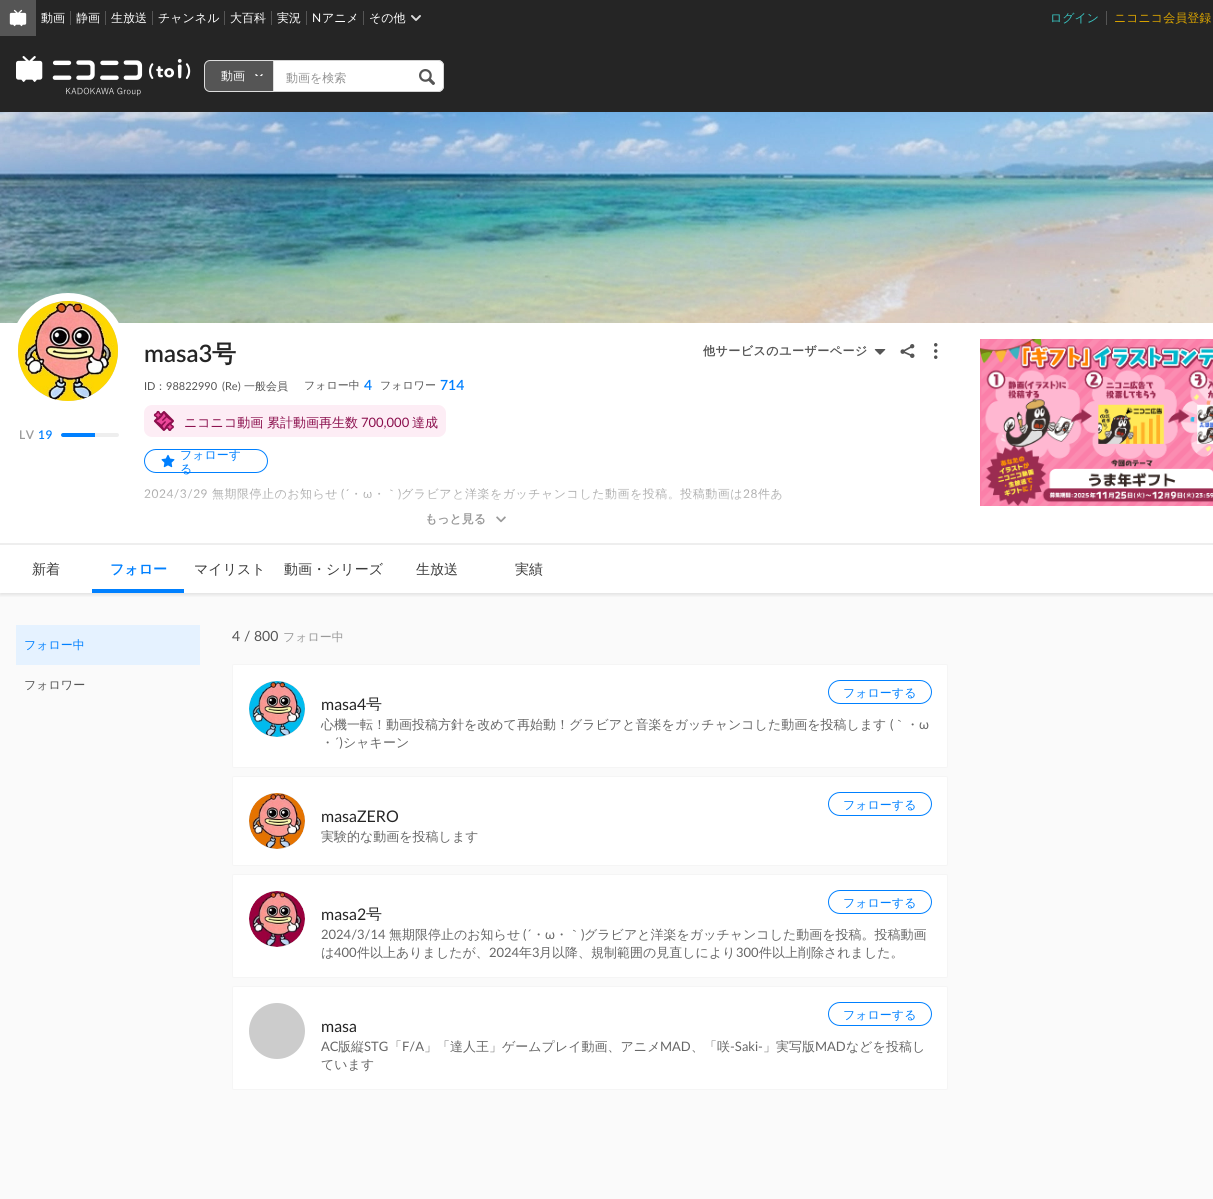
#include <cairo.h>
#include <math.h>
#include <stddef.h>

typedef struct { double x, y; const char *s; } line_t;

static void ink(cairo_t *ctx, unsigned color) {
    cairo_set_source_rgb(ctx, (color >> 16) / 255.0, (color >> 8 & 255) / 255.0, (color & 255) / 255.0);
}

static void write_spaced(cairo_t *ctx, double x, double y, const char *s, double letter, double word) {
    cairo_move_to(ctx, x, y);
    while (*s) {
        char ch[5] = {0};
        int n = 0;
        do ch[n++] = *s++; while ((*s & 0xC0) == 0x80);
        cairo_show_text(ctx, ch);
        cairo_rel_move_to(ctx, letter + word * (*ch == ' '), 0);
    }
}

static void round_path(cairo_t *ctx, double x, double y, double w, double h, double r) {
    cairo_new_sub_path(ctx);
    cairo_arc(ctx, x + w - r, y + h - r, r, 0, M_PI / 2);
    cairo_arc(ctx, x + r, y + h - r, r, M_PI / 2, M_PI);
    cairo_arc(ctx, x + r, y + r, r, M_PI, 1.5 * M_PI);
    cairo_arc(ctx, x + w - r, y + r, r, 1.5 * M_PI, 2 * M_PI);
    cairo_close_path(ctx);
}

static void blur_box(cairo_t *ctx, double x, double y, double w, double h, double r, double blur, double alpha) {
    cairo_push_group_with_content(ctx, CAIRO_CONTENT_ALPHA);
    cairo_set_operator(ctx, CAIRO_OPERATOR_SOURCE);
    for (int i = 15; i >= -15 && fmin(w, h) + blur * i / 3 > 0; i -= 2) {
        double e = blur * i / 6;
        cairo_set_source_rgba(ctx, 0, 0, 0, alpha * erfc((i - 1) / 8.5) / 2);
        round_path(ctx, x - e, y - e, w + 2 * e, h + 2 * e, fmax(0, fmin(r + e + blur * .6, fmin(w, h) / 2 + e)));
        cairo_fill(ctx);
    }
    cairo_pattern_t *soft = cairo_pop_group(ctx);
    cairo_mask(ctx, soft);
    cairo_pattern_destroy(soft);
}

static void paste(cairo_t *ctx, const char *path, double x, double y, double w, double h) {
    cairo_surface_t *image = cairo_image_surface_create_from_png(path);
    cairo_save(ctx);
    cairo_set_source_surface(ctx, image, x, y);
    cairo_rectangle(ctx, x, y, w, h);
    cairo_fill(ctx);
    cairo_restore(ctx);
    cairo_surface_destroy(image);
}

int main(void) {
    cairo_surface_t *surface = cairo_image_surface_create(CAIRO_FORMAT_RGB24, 1213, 1199);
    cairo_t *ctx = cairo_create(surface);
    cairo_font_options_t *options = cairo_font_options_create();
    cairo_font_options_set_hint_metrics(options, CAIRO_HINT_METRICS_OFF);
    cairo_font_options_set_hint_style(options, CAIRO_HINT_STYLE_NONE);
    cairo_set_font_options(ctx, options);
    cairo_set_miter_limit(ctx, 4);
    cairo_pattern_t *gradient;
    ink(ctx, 0xFAFAFA);
    cairo_paint(ctx);
    ink(ctx, 0x252525);
    cairo_rectangle(ctx, 36, 0, 1177, 36);
    cairo_fill(ctx);
    ink(ctx, 0x555555);
    cairo_rectangle(ctx, 0, 0, 36, 36);
    cairo_fill(ctx);
    paste(ctx, "media/1.png", 9, 9, 18, 18);
    cairo_select_font_face(ctx, "WenQuanYi Zen Hei Medium", CAIRO_FONT_SLANT_NORMAL, CAIRO_FONT_WEIGHT_NORMAL);
    cairo_set_font_size(ctx, 12);
    ink(ctx, 0xFFFFFF);
    cairo_move_to(ctx, 41, 22);
    cairo_show_text(ctx, "動画");
    ink(ctx, 0x555555);
    cairo_rectangle(ctx, 70, 11, 1, 14);
    cairo_fill(ctx);
    ink(ctx, 0xFFFFFF);
    cairo_move_to(ctx, 76, 22);
    cairo_show_text(ctx, "静画");
    ink(ctx, 0x555555);
    cairo_rectangle(ctx, 105, 11, 1, 14);
    cairo_fill(ctx);
    ink(ctx, 0xFFFFFF);
    cairo_move_to(ctx, 111, 22);
    cairo_show_text(ctx, "生放送");
    ink(ctx, 0x555555);
    cairo_rectangle(ctx, 152, 11, 1, 14);
    cairo_fill(ctx);
    ink(ctx, 0xFFFFFF);
    cairo_move_to(ctx, 158, 22);
    cairo_show_text(ctx, "チャンネル");
    ink(ctx, 0x555555);
    cairo_rectangle(ctx, 224, 11, 1, 14);
    cairo_fill(ctx);
    ink(ctx, 0xFFFFFF);
    cairo_move_to(ctx, 230, 22);
    cairo_show_text(ctx, "大百科");
    ink(ctx, 0x555555);
    cairo_rectangle(ctx, 271, 11, 1, 14);
    cairo_fill(ctx);
    ink(ctx, 0xFFFFFF);
    cairo_move_to(ctx, 277, 22);
    cairo_show_text(ctx, "実況");
    ink(ctx, 0x555555);
    cairo_rectangle(ctx, 306, 11, 1, 14);
    cairo_fill(ctx);
    cairo_select_font_face(ctx, "Lato", CAIRO_FONT_SLANT_NORMAL, CAIRO_FONT_WEIGHT_NORMAL);
    ink(ctx, 0xFFFFFF);
    cairo_move_to(ctx, 312, 22);
    cairo_show_text(ctx, "N");
    cairo_select_font_face(ctx, "WenQuanYi Zen Hei Medium", CAIRO_FONT_SLANT_NORMAL, CAIRO_FONT_WEIGHT_NORMAL);
    cairo_move_to(ctx, 322, 22);
    cairo_show_text(ctx, "アニメ");
    ink(ctx, 0x555555);
    cairo_rectangle(ctx, 363, 11, 1, 14);
    cairo_fill(ctx);
    ink(ctx, 0xFFFFFF);
    cairo_move_to(ctx, 369, 22);
    cairo_show_text(ctx, "その他");
    paste(ctx, "media/2.png", 411, 15, 10, 6);
    ink(ctx, 0x39C4C1);
    cairo_move_to(ctx, 1050, 22);
    cairo_show_text(ctx, "ログイン");
    ink(ctx, 0x555555);
    cairo_rectangle(ctx, 1106, 11, 1, 14);
    cairo_fill(ctx);
    ink(ctx, 0xD9A300);
    cairo_move_to(ctx, 1114, 22);
    cairo_show_text(ctx, "ニコニコ会員登録");
    ink(ctx, 0x252525);
    cairo_rectangle(ctx, 0, 36, 1213, 76);
    cairo_fill(ctx);
    paste(ctx, "media/3.png", 16, 56, 175, 40);
    ink(ctx, 0x555555);
    cairo_new_path(ctx);
    cairo_move_to(ctx, 210, 60.5);
    cairo_line_to(ctx, 273.5, 60.5);
    cairo_line_to(ctx, 273.5, 91.5);
    cairo_line_to(ctx, 210, 91.5);
    cairo_curve_to(ctx, 207, 91.5, 204.5, 89, 204.5, 86);
    cairo_line_to(ctx, 204.5, 66);
    cairo_curve_to(ctx, 204.5, 63, 207, 60.5, 210, 60.5);
    cairo_close_path(ctx);
    cairo_fill_preserve(ctx);
    ink(ctx, 0xDDDDDD);
    cairo_set_line_width(ctx, 1);
    cairo_stroke(ctx);
    ink(ctx, 0xFFFFFF);
    cairo_move_to(ctx, 221, 80);
    cairo_show_text(ctx, "動画");
    paste(ctx, "media/4.png", 255, 74, 8, 2);
    cairo_new_path(ctx);
    cairo_move_to(ctx, 274, 60);
    cairo_line_to(ctx, 438, 60);
    cairo_curve_to(ctx, 441.5, 60, 444, 62.5, 444, 66);
    cairo_line_to(ctx, 444, 86);
    cairo_curve_to(ctx, 444, 89.5, 441.5, 92, 438, 92);
    cairo_line_to(ctx, 274, 92);
    cairo_close_path(ctx);
    cairo_fill(ctx);
    ink(ctx, 0xD3D3D3);
    cairo_set_fill_rule(ctx, CAIRO_FILL_RULE_EVEN_ODD);
    cairo_new_path(ctx);
    cairo_move_to(ctx, 274, 60);
    cairo_line_to(ctx, 438, 60);
    cairo_curve_to(ctx, 441, 60, 444, 63, 444, 66);
    cairo_line_to(ctx, 444, 86);
    cairo_curve_to(ctx, 444, 89, 441, 92, 438, 92);
    cairo_line_to(ctx, 274, 92);
    cairo_close_path(ctx);
    cairo_move_to(ctx, 274, 61);
    cairo_line_to(ctx, 438, 61);
    cairo_curve_to(ctx, 441, 61, 443, 63, 443, 66);
    cairo_line_to(ctx, 443, 86);
    cairo_curve_to(ctx, 443, 89, 441, 91, 438, 91);
    cairo_line_to(ctx, 274, 91);
    cairo_close_path(ctx);
    cairo_fill(ctx);
    ink(ctx, 0x929292);
    cairo_move_to(ctx, 286, 82);
    cairo_show_text(ctx, "動画を検索");
    paste(ctx, "media/5.png", 419, 69, 16, 16);
    paste(ctx, "media/6.png", 0, 112, 1213, 211);
    ink(ctx, 0xFFFFFF);
    cairo_rectangle(ctx, 0, 323, 1213, 220);
    cairo_fill(ctx);
    cairo_arc(ctx, 68, 351, 58, 0, 2 * M_PI);
    cairo_fill(ctx);
    ink(ctx, 0xCCCCCC);
    cairo_arc(ctx, 68, 351, 50, 0, 2 * M_PI);
    cairo_fill(ctx);
    paste(ctx, "media/7.png", 18, 301, 100, 100);
    cairo_select_font_face(ctx, "Lato SemiBold", CAIRO_FONT_SLANT_NORMAL, CAIRO_FONT_WEIGHT_NORMAL);
    ink(ctx, 0x999999);
    write_spaced(ctx, 19, 439, "LV", 0.5, 0);
    ink(ctx, 0x0080FF);
    write_spaced(ctx, 38, 439, "19", 0.5, 0);
    ink(ctx, 0xEEEEEE);
    round_path(ctx, 61, 433, 58, 4, 2);
    cairo_fill(ctx);
    ink(ctx, 0x0080FF);
    cairo_new_path(ctx);
    cairo_move_to(ctx, 63, 433);
    cairo_line_to(ctx, 95, 433);
    cairo_line_to(ctx, 95, 437);
    cairo_line_to(ctx, 63, 437);
    cairo_curve_to(ctx, 62, 437, 61, 436, 61, 435);
    cairo_curve_to(ctx, 61, 434, 62, 433, 63, 433);
    cairo_close_path(ctx);
    cairo_fill(ctx);
    cairo_set_font_size(ctx, 24);
    ink(ctx, 0x252525);
    cairo_move_to(ctx, 144, 362);
    cairo_show_text(ctx, "masa3");
    cairo_select_font_face(ctx, "WenQuanYi Zen Hei", CAIRO_FONT_SLANT_NORMAL, CAIRO_FONT_WEIGHT_BOLD);
    cairo_move_to(ctx, 212, 362);
    cairo_show_text(ctx, "号");
    cairo_set_font_size(ctx, 12);
    ink(ctx, 0x555555);
    write_spaced(ctx, 703, 355, "他サービスのユーザーページ", 0.5, 0);
    paste(ctx, "media/8.png", 874, 349, 12, 6);
    paste(ctx, "media/9.png", 900, 344, 15, 14);
    paste(ctx, "media/10.png", 934, 343, 4, 16);
    cairo_select_font_face(ctx, "Lato", CAIRO_FONT_SLANT_NORMAL, CAIRO_FONT_WEIGHT_NORMAL);
    cairo_set_font_size(ctx, 11);
    cairo_move_to(ctx, 144, 390);
    cairo_show_text(ctx, "ID");
    cairo_select_font_face(ctx, "WenQuanYi Zen Hei Medium", CAIRO_FONT_SLANT_NORMAL, CAIRO_FONT_WEIGHT_NORMAL);
    cairo_move_to(ctx, 155, 390);
    cairo_show_text(ctx, "：");
    cairo_select_font_face(ctx, "Lato", CAIRO_FONT_SLANT_NORMAL, CAIRO_FONT_WEIGHT_NORMAL);
    cairo_move_to(ctx, 166, 390);
    cairo_show_text(ctx, "98822990");
    cairo_move_to(ctx, 222, 390);
    cairo_show_text(ctx, "(Re)");
    cairo_select_font_face(ctx, "WenQuanYi Zen Hei Medium", CAIRO_FONT_SLANT_NORMAL, CAIRO_FONT_WEIGHT_NORMAL);
    cairo_move_to(ctx, 244, 390);
    cairo_show_text(ctx, "一般会員");
    cairo_move_to(ctx, 304, 389);
    cairo_show_text(ctx, "フォロー中");
    cairo_select_font_face(ctx, "Lato SemiBold", CAIRO_FONT_SLANT_NORMAL, CAIRO_FONT_WEIGHT_NORMAL);
    cairo_set_font_size(ctx, 14);
    ink(ctx, 0x0080FF);
    cairo_move_to(ctx, 364, 390);
    cairo_show_text(ctx, "4");
    cairo_select_font_face(ctx, "WenQuanYi Zen Hei Medium", CAIRO_FONT_SLANT_NORMAL, CAIRO_FONT_WEIGHT_NORMAL);
    cairo_set_font_size(ctx, 11);
    ink(ctx, 0x555555);
    cairo_move_to(ctx, 380, 389);
    cairo_show_text(ctx, "フォロワー");
    cairo_select_font_face(ctx, "Lato SemiBold", CAIRO_FONT_SLANT_NORMAL, CAIRO_FONT_WEIGHT_NORMAL);
    cairo_set_font_size(ctx, 14);
    ink(ctx, 0x0080FF);
    cairo_move_to(ctx, 440, 390);
    cairo_show_text(ctx, "714");
    ink(ctx, 0xFDEDF5);
    round_path(ctx, 144, 405, 302, 32, 8);
    cairo_fill(ctx);
    paste(ctx, "media/11.png", 153, 410, 21, 21);
    cairo_select_font_face(ctx, "WenQuanYi Zen Hei Medium", CAIRO_FONT_SLANT_NORMAL, CAIRO_FONT_WEIGHT_NORMAL);
    cairo_set_font_size(ctx, 13);
    ink(ctx, 0x8B0F4D);
    cairo_move_to(ctx, 184, 427);
    cairo_show_text(ctx, "ニコニコ動画 累計動画再生数");
    cairo_select_font_face(ctx, "Lato", CAIRO_FONT_SLANT_NORMAL, CAIRO_FONT_WEIGHT_NORMAL);
    cairo_move_to(ctx, 361, 427);
    cairo_show_text(ctx, "700,000");
    cairo_select_font_face(ctx, "WenQuanYi Zen Hei Medium", CAIRO_FONT_SLANT_NORMAL, CAIRO_FONT_WEIGHT_NORMAL);
    cairo_move_to(ctx, 412, 427);
    cairo_show_text(ctx, "達成");
    round_path(ctx, 144.5, 449.5, 123, 23, 11.5);
    ink(ctx, 0x0080FF);
    cairo_stroke(ctx);
    paste(ctx, "media/12.png", 161, 454, 14, 14);
    cairo_set_font_size(ctx, 12);
    cairo_move_to(ctx, 180, 459);
    cairo_show_text(ctx, "フォローす");
    cairo_move_to(ctx, 180, 473);
    cairo_show_text(ctx, "る");
    cairo_select_font_face(ctx, "Lato", CAIRO_FONT_SLANT_NORMAL, CAIRO_FONT_WEIGHT_NORMAL);
    ink(ctx, 0x999999);
    write_spaced(ctx, 144, 498, "2024/3/29", 0.5, 0);
    cairo_select_font_face(ctx, "WenQuanYi Zen Hei Medium", CAIRO_FONT_SLANT_NORMAL, CAIRO_FONT_WEIGHT_NORMAL);
    write_spaced(ctx, 212, 498, "無期限停止のお知らせ", 0.5, 0);
    cairo_select_font_face(ctx, "Lato", CAIRO_FONT_SLANT_NORMAL, CAIRO_FONT_WEIGHT_NORMAL);
    write_spaced(ctx, 341, 498, "(´", 0.5, 0);
    cairo_select_font_face(ctx, "WenQuanYi Zen Hei Medium", CAIRO_FONT_SLANT_NORMAL, CAIRO_FONT_WEIGHT_NORMAL);
    write_spaced(ctx, 350, 498, "・", 0.5, 0);
    cairo_select_font_face(ctx, "Lato", CAIRO_FONT_SLANT_NORMAL, CAIRO_FONT_WEIGHT_NORMAL);
    write_spaced(ctx, 363, 498, "ω", 0.5, 0);
    cairo_select_font_face(ctx, "WenQuanYi Zen Hei Medium", CAIRO_FONT_SLANT_NORMAL, CAIRO_FONT_WEIGHT_NORMAL);
    write_spaced(ctx, 373, 498, "・｀", 0.5, 0);
    cairo_select_font_face(ctx, "Lato", CAIRO_FONT_SLANT_NORMAL, CAIRO_FONT_WEIGHT_NORMAL);
    write_spaced(ctx, 398, 498, ")", 0.5, 0);
    cairo_select_font_face(ctx, "WenQuanYi Zen Hei Medium", CAIRO_FONT_SLANT_NORMAL, CAIRO_FONT_WEIGHT_NORMAL);
    write_spaced(ctx, 401, 498, "グラビアと洋楽をガッチャンコした動画を投稿。投稿動画は", 0.5, 0);
    cairo_select_font_face(ctx, "Lato", CAIRO_FONT_SLANT_NORMAL, CAIRO_FONT_WEIGHT_NORMAL);
    write_spaced(ctx, 743, 498, "28", 0.5, 0);
    cairo_select_font_face(ctx, "WenQuanYi Zen Hei Medium", CAIRO_FONT_SLANT_NORMAL, CAIRO_FONT_WEIGHT_NORMAL);
    write_spaced(ctx, 758, 498, "件あ", 0.5, 0);
    gradient = cairo_pattern_create_linear(468, 485, 468, 521);
    cairo_pattern_add_color_stop_rgba(gradient, 0, 1, 1, 1, 0);
    cairo_pattern_add_color_stop_rgba(gradient, 1, 1, 1, 1, 1);
    cairo_set_source(ctx, gradient);
    cairo_pattern_destroy(gradient);
    cairo_rectangle(ctx, 144, 488, 638, 12);
    cairo_fill(ctx);
    cairo_select_font_face(ctx, "WenQuanYi Zen Hei", CAIRO_FONT_SLANT_NORMAL, CAIRO_FONT_WEIGHT_BOLD);
    ink(ctx, 0x999999);
    cairo_move_to(ctx, 425, 523);
    cairo_show_text(ctx, "もっと見る");
    paste(ctx, "media/13.png", 496, 516, 10, 7);
    ink(ctx, 0xEEEEEE);
    cairo_rectangle(ctx, 0, 543, 1213, 2);
    cairo_fill(ctx);
    paste(ctx, "media/14.png", 980, 339, 233, 167);
    ink(ctx, 0xFFFFFF);
    cairo_rectangle(ctx, 0, 545, 1213, 48);
    cairo_fill(ctx);
    cairo_save(ctx);
    cairo_set_fill_rule(ctx, CAIRO_FILL_RULE_WINDING);
    cairo_rectangle(ctx, 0, 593, 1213, 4);
    cairo_clip(ctx);
    ink(ctx, 0x000000);
    blur_box(ctx, 0, 547, 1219, 48, 0, 2, 0.1);
    cairo_restore(ctx);
    cairo_select_font_face(ctx, "WenQuanYi Zen Hei Medium", CAIRO_FONT_SLANT_NORMAL, CAIRO_FONT_WEIGHT_NORMAL);
    cairo_set_font_size(ctx, 14);
    ink(ctx, 0x3B3B3B);
    cairo_move_to(ctx, 32, 574);
    cairo_show_text(ctx, "新着");
    cairo_select_font_face(ctx, "WenQuanYi Zen Hei", CAIRO_FONT_SLANT_NORMAL, CAIRO_FONT_WEIGHT_BOLD);
    ink(ctx, 0x0080FF);
    cairo_move_to(ctx, 110, 574);
    cairo_show_text(ctx, "フォロー");
    cairo_select_font_face(ctx, "WenQuanYi Zen Hei Medium", CAIRO_FONT_SLANT_NORMAL, CAIRO_FONT_WEIGHT_NORMAL);
    ink(ctx, 0x3B3B3B);
    {
        static const line_t items[] = {
            {194, 574, "マイリスト"},
            {284, 574, "動画・シリーズ"},
            {416, 574, "生放送"},
            {515, 574, "実績"},
        };
        for (size_t i = 0; i < sizeof items / sizeof *items; i++) {
            cairo_move_to(ctx, items[i].x, items[i].y);
            cairo_show_text(ctx, items[i].s);
        }
    }
    ink(ctx, 0x0080FF);
    cairo_rectangle(ctx, 92, 589, 92, 4);
    cairo_fill(ctx);
    ink(ctx, 0xE5F2FF);
    cairo_rectangle(ctx, 16, 625, 184, 40);
    cairo_fill(ctx);
    cairo_set_font_size(ctx, 12);
    ink(ctx, 0x0080FF);
    cairo_move_to(ctx, 24, 649);
    cairo_show_text(ctx, "フォロー中");
    ink(ctx, 0x555555);
    cairo_move_to(ctx, 24, 689);
    cairo_show_text(ctx, "フォロワー");
    cairo_select_font_face(ctx, "Lato", CAIRO_FONT_SLANT_NORMAL, CAIRO_FONT_WEIGHT_NORMAL);
    cairo_set_font_size(ctx, 14);
    {
        static const line_t items[] = {
            {232, 641, "4"},
            {244, 641, "/"},
            {254, 641, "800"},
        };
        for (size_t i = 0; i < sizeof items / sizeof *items; i++) {
            cairo_move_to(ctx, items[i].x, items[i].y);
            cairo_show_text(ctx, items[i].s);
        }
    }
    cairo_select_font_face(ctx, "WenQuanYi Zen Hei Medium", CAIRO_FONT_SLANT_NORMAL, CAIRO_FONT_WEIGHT_NORMAL);
    cairo_set_font_size(ctx, 12);
    ink(ctx, 0x999999);
    cairo_move_to(ctx, 283, 641);
    cairo_show_text(ctx, "フォロー中");
    ink(ctx, 0xFFFFFF);
    round_path(ctx, 232.5, 664.5, 715, 103, 1.5);
    cairo_fill_preserve(ctx);
    ink(ctx, 0xF5F5F5);
    cairo_stroke(ctx);
    round_path(ctx, 828.5, 680.5, 103, 23, 11.5);
    ink(ctx, 0x0080FF);
    cairo_stroke(ctx);
    cairo_move_to(ctx, 843, 697);
    cairo_show_text(ctx, "フォローする");
    ink(ctx, 0xCCCCCC);
    cairo_new_path(ctx);
    cairo_arc(ctx, 277, 709, 28, 0, 2 * M_PI);
    cairo_fill(ctx);
    paste(ctx, "media/15.png", 249, 681, 56, 56);
    cairo_select_font_face(ctx, "Lato", CAIRO_FONT_SLANT_NORMAL, CAIRO_FONT_WEIGHT_NORMAL);
    cairo_set_font_size(ctx, 16);
    ink(ctx, 0x252525);
    cairo_move_to(ctx, 321, 710);
    cairo_show_text(ctx, "masa4");
    cairo_save(ctx);
    cairo_set_fill_rule(ctx, CAIRO_FILL_RULE_WINDING);
    cairo_rectangle(ctx, 321, 693, 506, 18);
    cairo_clip(ctx);
    cairo_select_font_face(ctx, "WenQuanYi Zen Hei Medium", CAIRO_FONT_SLANT_NORMAL, CAIRO_FONT_WEIGHT_NORMAL);
    cairo_move_to(ctx, 366, 710);
    cairo_show_text(ctx, "号");
    cairo_restore(ctx);
    cairo_select_font_face(ctx, "WenQuanYi Zen Hei Medium", CAIRO_FONT_SLANT_NORMAL, CAIRO_FONT_WEIGHT_NORMAL);
    cairo_set_font_size(ctx, 13);
    ink(ctx, 0x666666);
    cairo_move_to(ctx, 321, 729);
    cairo_show_text(ctx, "心機一転！動画投稿方針を改めて再始動！グラビアと音楽をガッチャンコした動画を投稿します");
    cairo_select_font_face(ctx, "Lato", CAIRO_FONT_SLANT_NORMAL, CAIRO_FONT_WEIGHT_NORMAL);
    cairo_move_to(ctx, 890, 729);
    cairo_show_text(ctx, "(");
    cairo_select_font_face(ctx, "WenQuanYi Zen Hei Medium", CAIRO_FONT_SLANT_NORMAL, CAIRO_FONT_WEIGHT_NORMAL);
    cairo_move_to(ctx, 893, 729);
    cairo_show_text(ctx, "｀・");
    cairo_select_font_face(ctx, "Lato", CAIRO_FONT_SLANT_NORMAL, CAIRO_FONT_WEIGHT_NORMAL);
    cairo_move_to(ctx, 919, 729);
    cairo_show_text(ctx, "ω");
    cairo_select_font_face(ctx, "WenQuanYi Zen Hei Medium", CAIRO_FONT_SLANT_NORMAL, CAIRO_FONT_WEIGHT_NORMAL);
    cairo_move_to(ctx, 321, 747);
    cairo_show_text(ctx, "・");
    cairo_select_font_face(ctx, "Lato", CAIRO_FONT_SLANT_NORMAL, CAIRO_FONT_WEIGHT_NORMAL);
    cairo_move_to(ctx, 334, 747);
    cairo_show_text(ctx, "´)");
    cairo_select_font_face(ctx, "WenQuanYi Zen Hei Medium", CAIRO_FONT_SLANT_NORMAL, CAIRO_FONT_WEIGHT_NORMAL);
    cairo_move_to(ctx, 343, 747);
    cairo_show_text(ctx, "シャキーン");
    ink(ctx, 0xFFFFFF);
    round_path(ctx, 232.5, 776.5, 715, 89, 1.5);
    cairo_fill_preserve(ctx);
    ink(ctx, 0xF5F5F5);
    cairo_stroke(ctx);
    round_path(ctx, 828.5, 792.5, 103, 23, 11.5);
    ink(ctx, 0x0080FF);
    cairo_stroke(ctx);
    cairo_set_font_size(ctx, 12);
    cairo_move_to(ctx, 843, 809);
    cairo_show_text(ctx, "フォローする");
    ink(ctx, 0xCCCCCC);
    cairo_new_path(ctx);
    cairo_arc(ctx, 277, 821, 28, 0, 2 * M_PI);
    cairo_fill(ctx);
    paste(ctx, "media/16.png", 249, 793, 56, 56);
    cairo_select_font_face(ctx, "Lato", CAIRO_FONT_SLANT_NORMAL, CAIRO_FONT_WEIGHT_NORMAL);
    cairo_set_font_size(ctx, 16);
    ink(ctx, 0x252525);
    cairo_move_to(ctx, 321, 822);
    cairo_show_text(ctx, "masaZERO");
    cairo_select_font_face(ctx, "WenQuanYi Zen Hei Medium", CAIRO_FONT_SLANT_NORMAL, CAIRO_FONT_WEIGHT_NORMAL);
    cairo_set_font_size(ctx, 13);
    ink(ctx, 0x666666);
    cairo_move_to(ctx, 321, 841);
    cairo_show_text(ctx, "実験的な動画を投稿します");
    ink(ctx, 0xFFFFFF);
    round_path(ctx, 232.5, 874.5, 715, 103, 1.5);
    cairo_fill_preserve(ctx);
    ink(ctx, 0xF5F5F5);
    cairo_stroke(ctx);
    round_path(ctx, 828.5, 890.5, 103, 23, 11.5);
    ink(ctx, 0x0080FF);
    cairo_stroke(ctx);
    cairo_set_font_size(ctx, 12);
    cairo_move_to(ctx, 843, 907);
    cairo_show_text(ctx, "フォローする");
    ink(ctx, 0xCCCCCC);
    cairo_new_path(ctx);
    cairo_arc(ctx, 277, 919, 28, 0, 2 * M_PI);
    cairo_fill(ctx);
    paste(ctx, "media/17.png", 249, 891, 56, 56);
    cairo_select_font_face(ctx, "Lato", CAIRO_FONT_SLANT_NORMAL, CAIRO_FONT_WEIGHT_NORMAL);
    cairo_set_font_size(ctx, 16);
    ink(ctx, 0x252525);
    cairo_move_to(ctx, 321, 920);
    cairo_show_text(ctx, "masa2");
    cairo_save(ctx);
    cairo_set_fill_rule(ctx, CAIRO_FILL_RULE_WINDING);
    cairo_rectangle(ctx, 321, 903, 506, 18);
    cairo_clip(ctx);
    cairo_select_font_face(ctx, "WenQuanYi Zen Hei Medium", CAIRO_FONT_SLANT_NORMAL, CAIRO_FONT_WEIGHT_NORMAL);
    cairo_move_to(ctx, 366, 920);
    cairo_show_text(ctx, "号");
    cairo_restore(ctx);
    cairo_set_font_size(ctx, 13);
    ink(ctx, 0x666666);
    cairo_move_to(ctx, 321, 939);
    cairo_show_text(ctx, "2024/3/14");
    cairo_select_font_face(ctx, "WenQuanYi Zen Hei Medium", CAIRO_FONT_SLANT_NORMAL, CAIRO_FONT_WEIGHT_NORMAL);
    cairo_move_to(ctx, 389, 939);
    cairo_show_text(ctx, "無期限停止のお知らせ");
    cairo_select_font_face(ctx, "Lato", CAIRO_FONT_SLANT_NORMAL, CAIRO_FONT_WEIGHT_NORMAL);
    cairo_move_to(ctx, 523, 939);
    cairo_show_text(ctx, "(´");
    cairo_select_font_face(ctx, "WenQuanYi Zen Hei Medium", CAIRO_FONT_SLANT_NORMAL, CAIRO_FONT_WEIGHT_NORMAL);
    cairo_move_to(ctx, 532, 939);
    cairo_show_text(ctx, "・");
    cairo_select_font_face(ctx, "Lato", CAIRO_FONT_SLANT_NORMAL, CAIRO_FONT_WEIGHT_NORMAL);
    cairo_move_to(ctx, 545, 939);
    cairo_show_text(ctx, "ω");
    cairo_select_font_face(ctx, "WenQuanYi Zen Hei Medium", CAIRO_FONT_SLANT_NORMAL, CAIRO_FONT_WEIGHT_NORMAL);
    cairo_move_to(ctx, 555, 939);
    cairo_show_text(ctx, "・｀");
    cairo_select_font_face(ctx, "Lato", CAIRO_FONT_SLANT_NORMAL, CAIRO_FONT_WEIGHT_NORMAL);
    cairo_move_to(ctx, 581, 939);
    cairo_show_text(ctx, ")");
    cairo_select_font_face(ctx, "WenQuanYi Zen Hei Medium", CAIRO_FONT_SLANT_NORMAL, CAIRO_FONT_WEIGHT_NORMAL);
    cairo_move_to(ctx, 584, 939);
    cairo_show_text(ctx, "グラビアと洋楽をガッチャンコした動画を投稿。投稿動画");
    cairo_move_to(ctx, 321, 957);
    cairo_show_text(ctx, "は");
    cairo_select_font_face(ctx, "Lato", CAIRO_FONT_SLANT_NORMAL, CAIRO_FONT_WEIGHT_NORMAL);
    cairo_move_to(ctx, 334, 957);
    cairo_show_text(ctx, "400");
    cairo_select_font_face(ctx, "WenQuanYi Zen Hei Medium", CAIRO_FONT_SLANT_NORMAL, CAIRO_FONT_WEIGHT_NORMAL);
    cairo_move_to(ctx, 357, 957);
    cairo_show_text(ctx, "件以上ありましたが、");
    cairo_select_font_face(ctx, "Lato", CAIRO_FONT_SLANT_NORMAL, CAIRO_FONT_WEIGHT_NORMAL);
    cairo_move_to(ctx, 489, 957);
    cairo_show_text(ctx, "2024");
    cairo_select_font_face(ctx, "WenQuanYi Zen Hei Medium", CAIRO_FONT_SLANT_NORMAL, CAIRO_FONT_WEIGHT_NORMAL);
    cairo_move_to(ctx, 519, 957);
    cairo_show_text(ctx, "年");
    cairo_select_font_face(ctx, "Lato", CAIRO_FONT_SLANT_NORMAL, CAIRO_FONT_WEIGHT_NORMAL);
    cairo_move_to(ctx, 532, 957);
    cairo_show_text(ctx, "3");
    cairo_select_font_face(ctx, "WenQuanYi Zen Hei Medium", CAIRO_FONT_SLANT_NORMAL, CAIRO_FONT_WEIGHT_NORMAL);
    cairo_move_to(ctx, 539, 957);
    cairo_show_text(ctx, "月以降、規制範囲の見直しにより");
    cairo_select_font_face(ctx, "Lato", CAIRO_FONT_SLANT_NORMAL, CAIRO_FONT_WEIGHT_NORMAL);
    cairo_move_to(ctx, 736, 957);
    cairo_show_text(ctx, "300");
    cairo_select_font_face(ctx, "WenQuanYi Zen Hei Medium", CAIRO_FONT_SLANT_NORMAL, CAIRO_FONT_WEIGHT_NORMAL);
    cairo_move_to(ctx, 759, 957);
    cairo_show_text(ctx, "件以上削除されました。");
    ink(ctx, 0xFFFFFF);
    round_path(ctx, 232.5, 986.5, 715, 103, 1.5);
    cairo_fill_preserve(ctx);
    ink(ctx, 0xF5F5F5);
    cairo_stroke(ctx);
    round_path(ctx, 828.5, 1002.5, 103, 23, 11.5);
    ink(ctx, 0x0080FF);
    cairo_stroke(ctx);
    cairo_set_font_size(ctx, 12);
    cairo_move_to(ctx, 843, 1019);
    cairo_show_text(ctx, "フォローする");
    ink(ctx, 0xCCCCCC);
    cairo_new_path(ctx);
    cairo_arc(ctx, 277, 1031, 28, 0, 2 * M_PI);
    cairo_fill(ctx);
    cairo_select_font_face(ctx, "Lato", CAIRO_FONT_SLANT_NORMAL, CAIRO_FONT_WEIGHT_NORMAL);
    cairo_set_font_size(ctx, 16);
    ink(ctx, 0x252525);
    cairo_move_to(ctx, 321, 1032);
    cairo_show_text(ctx, "masa");
    cairo_set_font_size(ctx, 13);
    ink(ctx, 0x666666);
    cairo_move_to(ctx, 321, 1051);
    cairo_show_text(ctx, "AC");
    cairo_select_font_face(ctx, "WenQuanYi Zen Hei Medium", CAIRO_FONT_SLANT_NORMAL, CAIRO_FONT_WEIGHT_NORMAL);
    cairo_move_to(ctx, 338, 1051);
    cairo_show_text(ctx, "版縦");
    cairo_select_font_face(ctx, "Lato", CAIRO_FONT_SLANT_NORMAL, CAIRO_FONT_WEIGHT_NORMAL);
    cairo_move_to(ctx, 364, 1051);
    cairo_show_text(ctx, "STG");
    cairo_select_font_face(ctx, "WenQuanYi Zen Hei Medium", CAIRO_FONT_SLANT_NORMAL, CAIRO_FONT_WEIGHT_NORMAL);
    cairo_move_to(ctx, 389, 1051);
    cairo_show_text(ctx, "「");
    cairo_select_font_face(ctx, "Lato", CAIRO_FONT_SLANT_NORMAL, CAIRO_FONT_WEIGHT_NORMAL);
    cairo_move_to(ctx, 402, 1051);
    cairo_show_text(ctx, "F/A");
    cairo_select_font_face(ctx, "WenQuanYi Zen Hei Medium", CAIRO_FONT_SLANT_NORMAL, CAIRO_FONT_WEIGHT_NORMAL);
    cairo_move_to(ctx, 424, 1051);
    cairo_show_text(ctx, "」「達人王」ゲームプレイ動画、アニメ");
    cairo_select_font_face(ctx, "Lato", CAIRO_FONT_SLANT_NORMAL, CAIRO_FONT_WEIGHT_NORMAL);
    cairo_move_to(ctx, 660, 1051);
    cairo_show_text(ctx, "MAD");
    cairo_select_font_face(ctx, "WenQuanYi Zen Hei Medium", CAIRO_FONT_SLANT_NORMAL, CAIRO_FONT_WEIGHT_NORMAL);
    cairo_move_to(ctx, 691, 1051);
    cairo_show_text(ctx, "、「咲");
    cairo_select_font_face(ctx, "Lato", CAIRO_FONT_SLANT_NORMAL, CAIRO_FONT_WEIGHT_NORMAL);
    cairo_move_to(ctx, 730, 1051);
    cairo_show_text(ctx, "-Saki-");
    cairo_select_font_face(ctx, "WenQuanYi Zen Hei Medium", CAIRO_FONT_SLANT_NORMAL, CAIRO_FONT_WEIGHT_NORMAL);
    cairo_move_to(ctx, 763, 1051);
    cairo_show_text(ctx, "」実写版");
    cairo_select_font_face(ctx, "Lato", CAIRO_FONT_SLANT_NORMAL, CAIRO_FONT_WEIGHT_NORMAL);
    cairo_move_to(ctx, 815, 1051);
    cairo_show_text(ctx, "MAD");
    cairo_select_font_face(ctx, "WenQuanYi Zen Hei Medium", CAIRO_FONT_SLANT_NORMAL, CAIRO_FONT_WEIGHT_NORMAL);
    cairo_move_to(ctx, 846, 1051);
    cairo_show_text(ctx, "などを投稿し");
    cairo_move_to(ctx, 321, 1069);
    cairo_show_text(ctx, "ています");
    cairo_surface_write_to_png(surface, "image.png");
    cairo_font_options_destroy(options);
    cairo_destroy(ctx);
    cairo_surface_destroy(surface);
    return 0;
}
